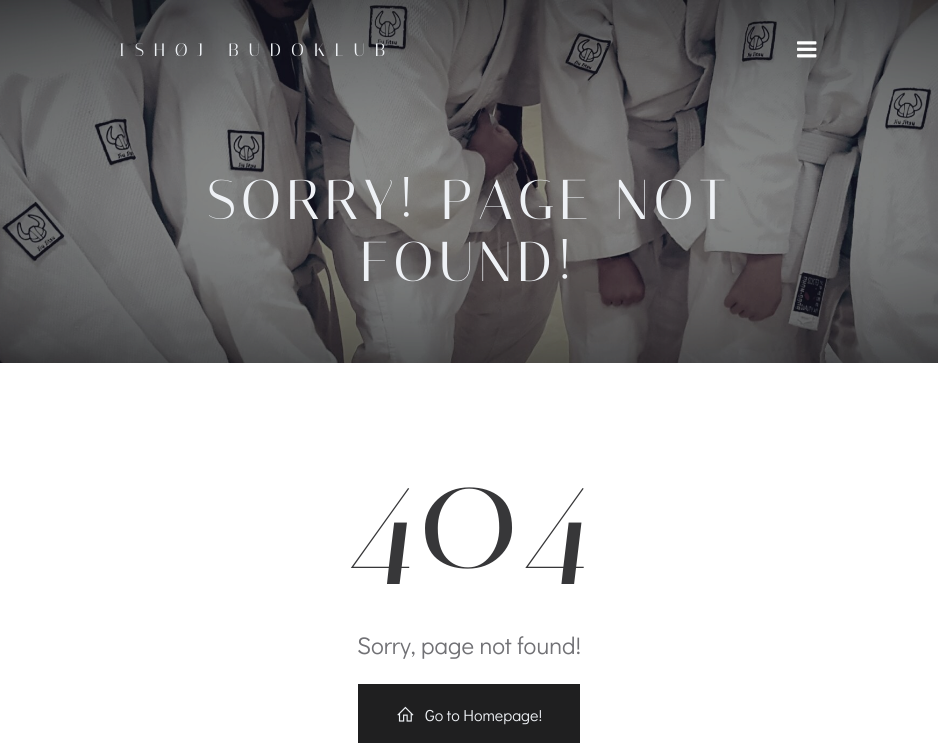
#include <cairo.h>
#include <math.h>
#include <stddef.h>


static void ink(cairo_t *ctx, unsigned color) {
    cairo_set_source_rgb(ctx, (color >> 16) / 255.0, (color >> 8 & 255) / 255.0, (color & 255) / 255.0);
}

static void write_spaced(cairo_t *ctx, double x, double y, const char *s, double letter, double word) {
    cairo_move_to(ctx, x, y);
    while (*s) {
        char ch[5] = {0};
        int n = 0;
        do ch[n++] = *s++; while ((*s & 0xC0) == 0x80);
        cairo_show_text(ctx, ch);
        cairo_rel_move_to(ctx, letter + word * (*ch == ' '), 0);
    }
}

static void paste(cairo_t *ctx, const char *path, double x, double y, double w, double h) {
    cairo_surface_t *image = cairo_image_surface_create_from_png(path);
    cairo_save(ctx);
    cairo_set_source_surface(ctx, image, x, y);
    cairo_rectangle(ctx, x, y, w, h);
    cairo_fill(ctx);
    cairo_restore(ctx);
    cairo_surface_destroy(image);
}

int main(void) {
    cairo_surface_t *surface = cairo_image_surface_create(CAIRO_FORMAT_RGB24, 938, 743);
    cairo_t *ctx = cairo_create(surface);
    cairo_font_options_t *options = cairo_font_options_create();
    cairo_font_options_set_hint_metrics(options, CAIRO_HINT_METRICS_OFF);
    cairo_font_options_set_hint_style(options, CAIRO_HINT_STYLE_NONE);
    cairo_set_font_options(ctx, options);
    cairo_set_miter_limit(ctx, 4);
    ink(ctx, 0xFFFFFF);
    cairo_paint(ctx);
    paste(ctx, "media/2.png", 0, 0, 938, 363);
    cairo_select_font_face(ctx, "Italiana", CAIRO_FONT_SLANT_NORMAL, CAIRO_FONT_WEIGHT_NORMAL);
    cairo_set_font_size(ctx, 18);
    ink(ctx, 0xEEF1F5);
    write_spaced(ctx, 119, 56, "ISHØJ BUDOKLUB", 10, 0);
    paste(ctx, "media/1.png", 797, 41, 20, 17);
    cairo_set_font_size(ctx, 56);
    write_spaced(ctx, 207, 219, "SORRY! PAGE NOT", 5, 0);
    write_spaced(ctx, 360, 281, "FOUND!", 5, 0);
    cairo_set_font_size(ctx, 160);
    ink(ctx, 0x373739);
    cairo_move_to(ctx, 346, 568);
    cairo_show_text(ctx, "404");
    cairo_select_font_face(ctx, "Didact Gothic", CAIRO_FONT_SLANT_NORMAL, CAIRO_FONT_WEIGHT_NORMAL);
    cairo_set_font_size(ctx, 24);
    ink(ctx, 0x717175);
    cairo_move_to(ctx, 357, 654);
    cairo_show_text(ctx, "Sorry, page not found!");
    ink(ctx, 0x1F1F20);
    cairo_rectangle(ctx, 358, 684, 222, 59);
    cairo_fill(ctx);
    paste(ctx, "media/3.png", 397, 706, 17, 16);
    cairo_set_font_size(ctx, 16);
    ink(ctx, 0xEEF1F5);
    cairo_move_to(ctx, 425, 721);
    cairo_show_text(ctx, "Go to Homepage!");
    cairo_surface_write_to_png(surface, "image.png");
    cairo_font_options_destroy(options);
    cairo_destroy(ctx);
    cairo_surface_destroy(surface);
    return 0;
}
